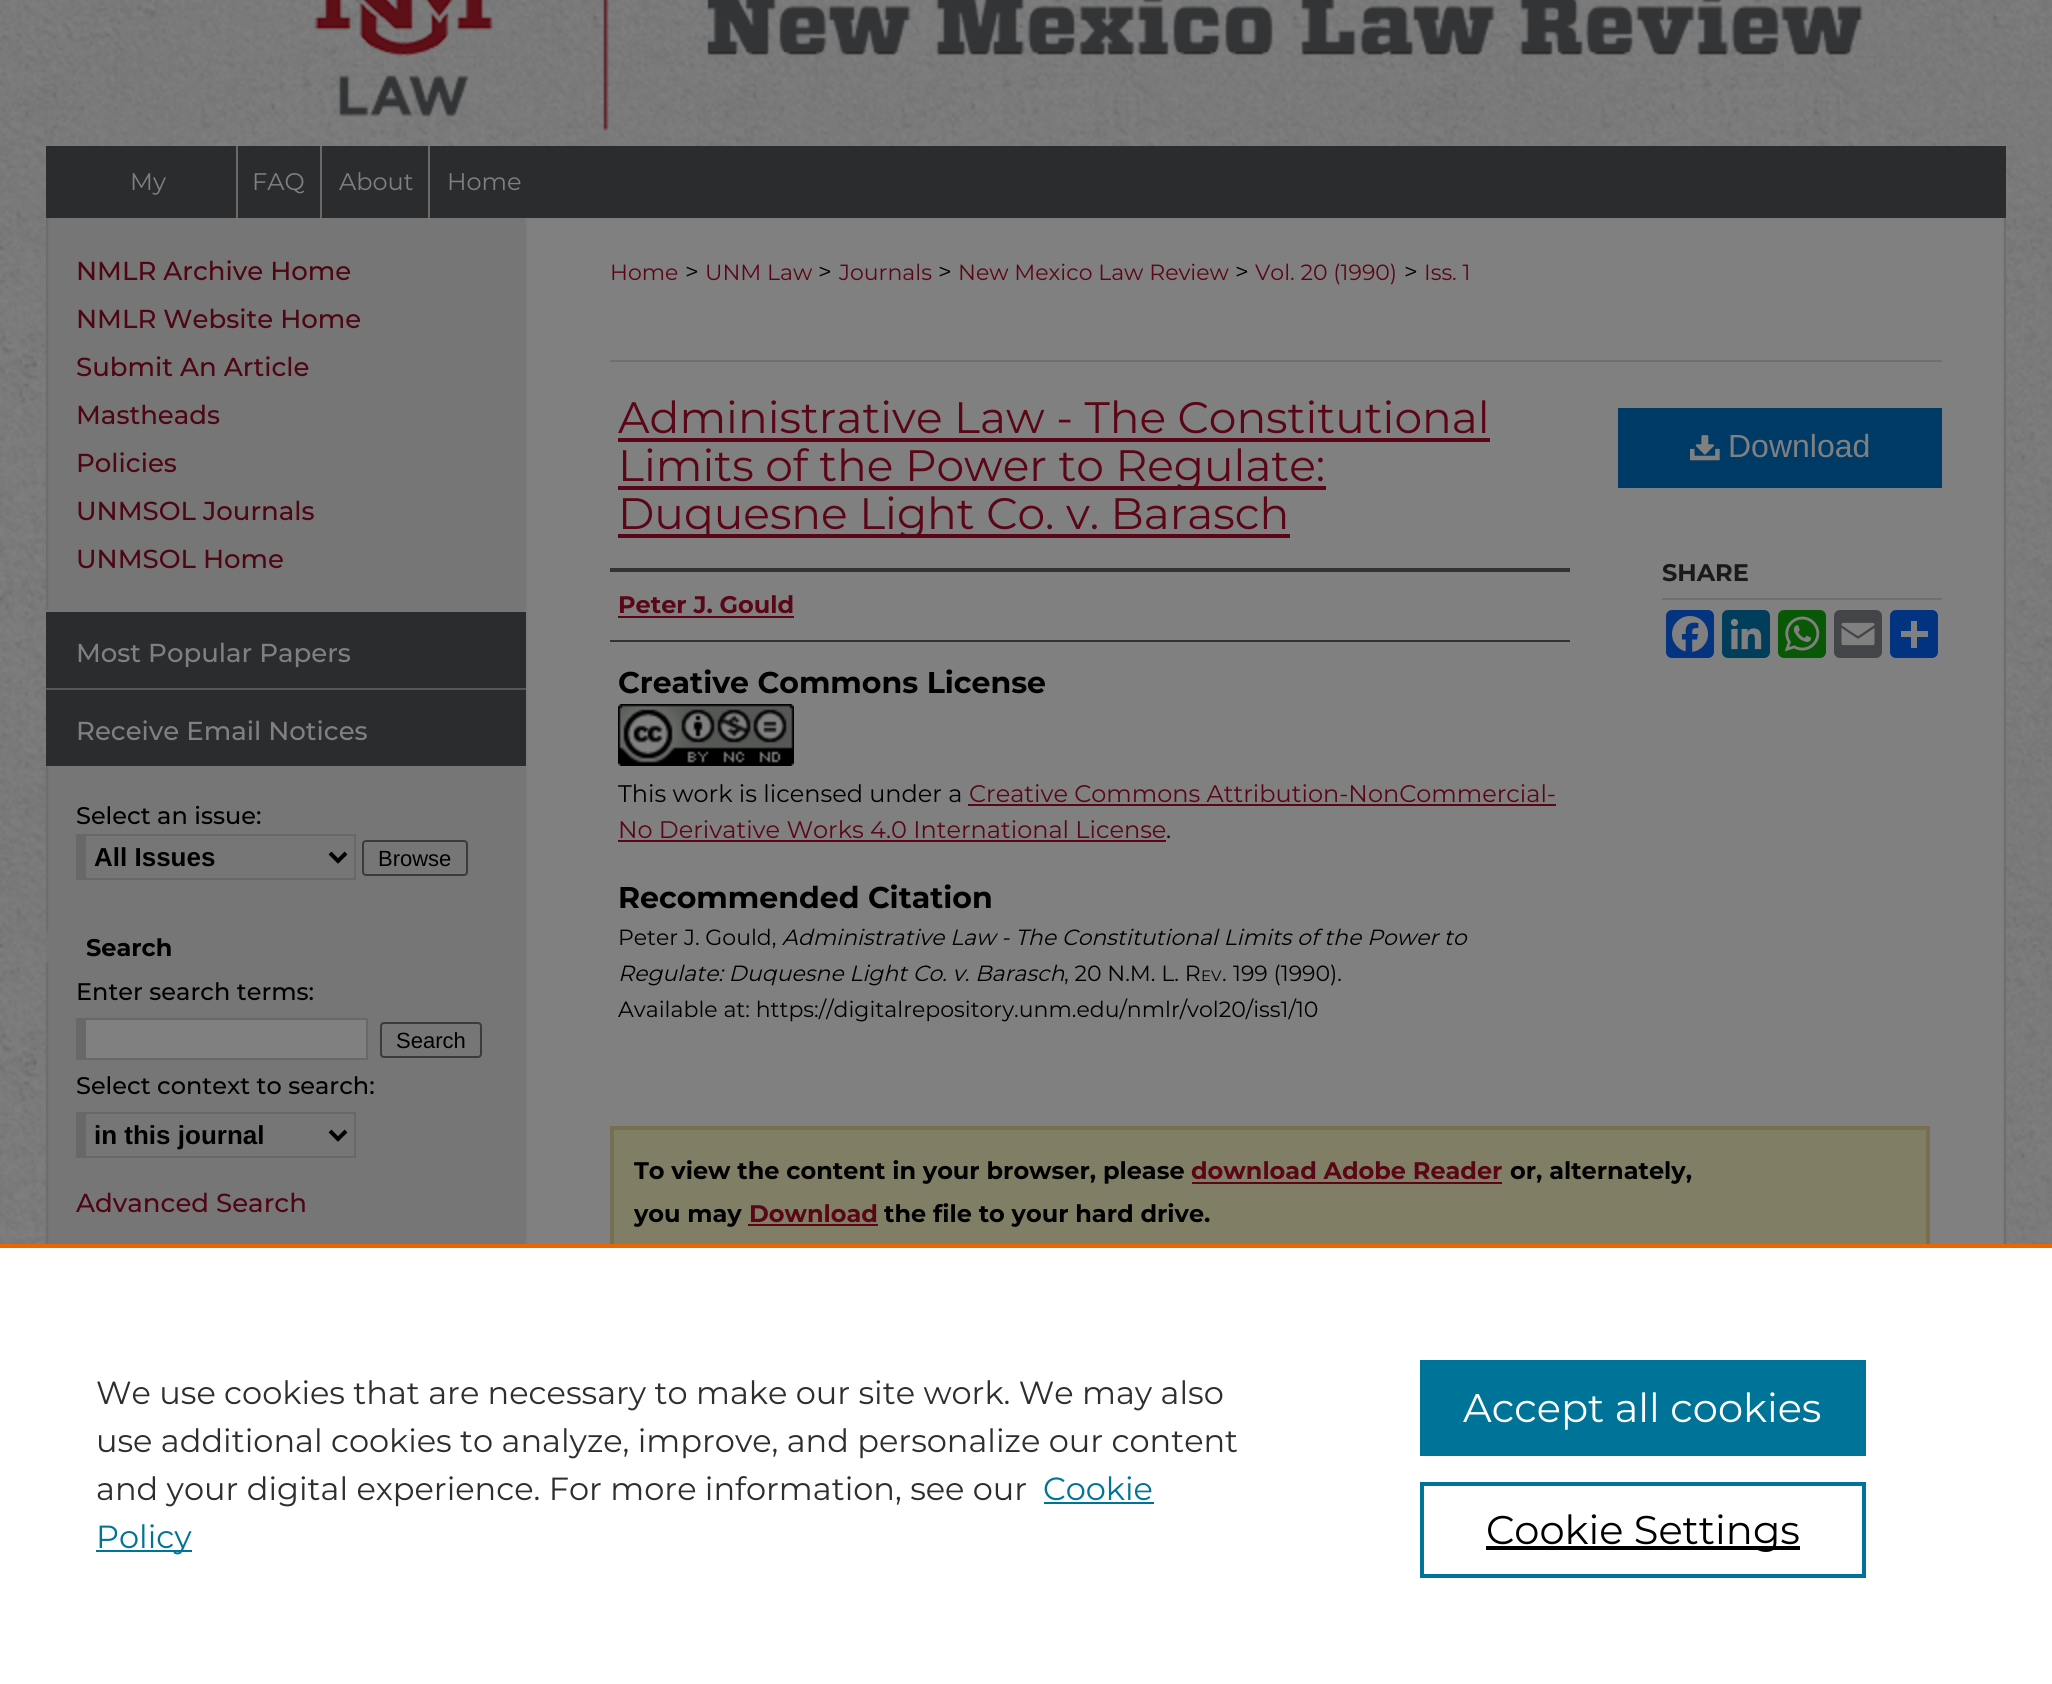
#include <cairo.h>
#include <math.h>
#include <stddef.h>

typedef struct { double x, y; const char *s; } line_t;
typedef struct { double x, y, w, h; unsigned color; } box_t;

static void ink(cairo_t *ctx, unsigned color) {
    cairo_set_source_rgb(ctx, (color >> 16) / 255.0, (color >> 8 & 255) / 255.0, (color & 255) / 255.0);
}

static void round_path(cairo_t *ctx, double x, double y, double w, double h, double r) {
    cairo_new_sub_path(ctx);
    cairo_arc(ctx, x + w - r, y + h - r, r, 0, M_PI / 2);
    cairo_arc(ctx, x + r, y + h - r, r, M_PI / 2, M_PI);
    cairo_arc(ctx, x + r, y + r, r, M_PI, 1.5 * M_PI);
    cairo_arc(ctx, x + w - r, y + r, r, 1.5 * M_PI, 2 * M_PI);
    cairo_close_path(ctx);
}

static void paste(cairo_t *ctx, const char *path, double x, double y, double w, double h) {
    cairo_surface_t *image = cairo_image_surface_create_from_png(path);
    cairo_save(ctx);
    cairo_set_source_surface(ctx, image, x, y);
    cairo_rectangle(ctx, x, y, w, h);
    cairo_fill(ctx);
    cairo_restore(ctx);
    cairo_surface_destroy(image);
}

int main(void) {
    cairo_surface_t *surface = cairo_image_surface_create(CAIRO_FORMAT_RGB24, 2052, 1684);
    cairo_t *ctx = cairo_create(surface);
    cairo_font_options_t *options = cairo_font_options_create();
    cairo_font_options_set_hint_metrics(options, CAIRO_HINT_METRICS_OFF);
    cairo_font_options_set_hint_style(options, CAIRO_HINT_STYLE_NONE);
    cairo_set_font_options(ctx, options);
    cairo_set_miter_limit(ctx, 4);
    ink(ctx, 0xFFFFFF);
    cairo_paint(ctx);
    paste(ctx, "media/1.png", 0, 0, 2052, 1244);
    paste(ctx, "media/2.png", 313, 0, 1550, 131);
    ink(ctx, 0x2B2C2E);
    cairo_rectangle(ctx, 46, 146, 1960, 72);
    cairo_fill(ctx);
    ink(ctx, 0x696969);
    cairo_rectangle(ctx, 236, 146, 2, 72);
    cairo_fill(ctx);
    cairo_select_font_face(ctx, "Montserrat", CAIRO_FONT_SLANT_NORMAL, CAIRO_FONT_WEIGHT_NORMAL);
    cairo_set_font_size(ctx, 24);
    ink(ctx, 0x808080);
    cairo_move_to(ctx, 130, 190);
    cairo_show_text(ctx, "My");
    ink(ctx, 0x696969);
    cairo_rectangle(ctx, 320, 146, 2, 72);
    cairo_fill(ctx);
    ink(ctx, 0x808080);
    cairo_move_to(ctx, 252, 190);
    cairo_show_text(ctx, "FAQ");
    ink(ctx, 0x696969);
    cairo_rectangle(ctx, 428, 146, 2, 72);
    cairo_fill(ctx);
    ink(ctx, 0x808080);
    cairo_move_to(ctx, 339, 190);
    cairo_show_text(ctx, "About");
    cairo_move_to(ctx, 447, 190);
    cairo_show_text(ctx, "Home");
    paste(ctx, "media/3.png", 46, 218, 1960, 1026);
    cairo_select_font_face(ctx, "Montserrat Medium", CAIRO_FONT_SLANT_NORMAL, CAIRO_FONT_WEIGHT_NORMAL);
    cairo_set_font_size(ctx, 26);
    ink(ctx, 0x4E0514);
    {
        static const line_t items[] = {
            {76, 280, "NMLR Archive Home"},
            {76, 328, "NMLR Website Home"},
            {76, 376, "Submit An Article"},
            {76, 424, "Mastheads"},
            {76, 472, "Policies"},
            {76, 520, "UNMSOL Journals"},
            {76, 568, "UNMSOL Home"},
        };
        for (size_t i = 0; i < sizeof items / sizeof *items; i++) {
            cairo_move_to(ctx, items[i].x, items[i].y);
            cairo_show_text(ctx, items[i].s);
        }
    }
    {
        static const box_t items[] = {
            {46, 612, 480, 76, 0x2B2C2E},
            {46, 610, 3, 2, 0x767676},
            {46, 688, 480, 2, 0x565657},
        };
        for (size_t i = 0; i < sizeof items / sizeof *items; i++) {
            ink(ctx, items[i].color);
            cairo_rectangle(ctx, items[i].x, items[i].y, items[i].w, items[i].h);
            cairo_fill(ctx);
        }
    }
    ink(ctx, 0x808080);
    cairo_move_to(ctx, 76, 662);
    cairo_show_text(ctx, "Most Popular Papers");
    ink(ctx, 0x2B2C2E);
    cairo_rectangle(ctx, 46, 690, 480, 76);
    cairo_fill(ctx);
    ink(ctx, 0x808080);
    cairo_move_to(ctx, 76, 740);
    cairo_show_text(ctx, "Receive Email Notices");
    cairo_set_font_size(ctx, 24);
    ink(ctx, 0x000000);
    cairo_move_to(ctx, 76, 824);
    cairo_show_text(ctx, "Select an issue:");
    {
        static const box_t items[] = {
            {86, 834, 270, 2, 0x67686A},
            {354, 834, 2, 46, 0x67686A},
            {86, 878, 270, 2, 0x67686A},
            {76, 834, 10, 46, 0x67686A},
        };
        for (size_t i = 0; i < sizeof items / sizeof *items; i++) {
            ink(ctx, items[i].color);
            cairo_rectangle(ctx, items[i].x, items[i].y, items[i].w, items[i].h);
            cairo_fill(ctx);
        }
    }
    cairo_new_path(ctx);
    cairo_move_to(ctx, 330, 853);
    cairo_line_to(ctx, 338, 861);
    cairo_line_to(ctx, 346, 853);
    ink(ctx, 0x000000);
    cairo_set_line_width(ctx, 4);
    cairo_stroke(ctx);
    cairo_select_font_face(ctx, "Liberation Sans", CAIRO_FONT_SLANT_NORMAL, CAIRO_FONT_WEIGHT_BOLD);
    cairo_set_font_size(ctx, 26);
    cairo_move_to(ctx, 94, 866);
    cairo_show_text(ctx, "All Issues");
    round_path(ctx, 363, 841, 104, 34, 3);
    ink(ctx, 0x3B3B3B);
    cairo_set_line_width(ctx, 2);
    cairo_stroke(ctx);
    cairo_select_font_face(ctx, "Liberation Sans", CAIRO_FONT_SLANT_NORMAL, CAIRO_FONT_WEIGHT_NORMAL);
    cairo_set_font_size(ctx, 22);
    ink(ctx, 0x000000);
    cairo_move_to(ctx, 378, 866);
    cairo_show_text(ctx, "Browse");
    ink(ctx, 0x767676);
    cairo_rectangle(ctx, 46, 932, 3, 30);
    cairo_fill(ctx);
    cairo_select_font_face(ctx, "Montserrat", CAIRO_FONT_SLANT_NORMAL, CAIRO_FONT_WEIGHT_BOLD);
    cairo_set_font_size(ctx, 24);
    ink(ctx, 0x000000);
    cairo_move_to(ctx, 86, 956);
    cairo_show_text(ctx, "Search");
    cairo_select_font_face(ctx, "Montserrat Medium", CAIRO_FONT_SLANT_NORMAL, CAIRO_FONT_WEIGHT_NORMAL);
    cairo_move_to(ctx, 76, 1000);
    cairo_show_text(ctx, "Enter search terms:");
    {
        static const box_t items[] = {
            {86, 1020, 280, 38, 0x808080},
            {86, 1018, 282, 2, 0x67686A},
            {366, 1018, 2, 42, 0x67686A},
            {86, 1058, 282, 2, 0x67686A},
            {76, 1018, 10, 42, 0x67686A},
        };
        for (size_t i = 0; i < sizeof items / sizeof *items; i++) {
            ink(ctx, items[i].color);
            cairo_rectangle(ctx, items[i].x, items[i].y, items[i].w, items[i].h);
            cairo_fill(ctx);
        }
    }
    round_path(ctx, 381, 1023, 100, 34, 3);
    ink(ctx, 0x3B3B3B);
    cairo_stroke(ctx);
    cairo_select_font_face(ctx, "Liberation Sans", CAIRO_FONT_SLANT_NORMAL, CAIRO_FONT_WEIGHT_NORMAL);
    cairo_set_font_size(ctx, 22);
    ink(ctx, 0x000000);
    cairo_move_to(ctx, 396, 1048);
    cairo_show_text(ctx, "Search");
    cairo_select_font_face(ctx, "Montserrat Medium", CAIRO_FONT_SLANT_NORMAL, CAIRO_FONT_WEIGHT_NORMAL);
    cairo_set_font_size(ctx, 24);
    cairo_move_to(ctx, 76, 1094);
    cairo_show_text(ctx, "Select context to search:");
    {
        static const box_t items[] = {
            {86, 1112, 270, 2, 0x67686A},
            {354, 1112, 2, 46, 0x67686A},
            {86, 1156, 270, 2, 0x67686A},
            {76, 1112, 10, 46, 0x67686A},
        };
        for (size_t i = 0; i < sizeof items / sizeof *items; i++) {
            ink(ctx, items[i].color);
            cairo_rectangle(ctx, items[i].x, items[i].y, items[i].w, items[i].h);
            cairo_fill(ctx);
        }
    }
    cairo_new_path(ctx);
    cairo_move_to(ctx, 330, 1131);
    cairo_line_to(ctx, 338, 1139);
    cairo_line_to(ctx, 346, 1131);
    ink(ctx, 0x000000);
    cairo_set_line_width(ctx, 4);
    cairo_stroke(ctx);
    cairo_select_font_face(ctx, "Liberation Sans", CAIRO_FONT_SLANT_NORMAL, CAIRO_FONT_WEIGHT_BOLD);
    cairo_set_font_size(ctx, 26);
    cairo_move_to(ctx, 94, 1144);
    cairo_show_text(ctx, "in this journal");
    cairo_select_font_face(ctx, "Montserrat Medium", CAIRO_FONT_SLANT_NORMAL, CAIRO_FONT_WEIGHT_NORMAL);
    ink(ctx, 0x4E0514);
    cairo_move_to(ctx, 76, 1212);
    cairo_show_text(ctx, "Advanced Search");
    cairo_select_font_face(ctx, "Montserrat", CAIRO_FONT_SLANT_NORMAL, CAIRO_FONT_WEIGHT_NORMAL);
    cairo_set_font_size(ctx, 22);
    ink(ctx, 0x5A0616);
    cairo_move_to(ctx, 610, 280);
    cairo_show_text(ctx, "Home");
    cairo_set_font_size(ctx, 24);
    ink(ctx, 0x000000);
    cairo_move_to(ctx, 685, 280);
    cairo_show_text(ctx, ">");
    cairo_set_font_size(ctx, 22);
    ink(ctx, 0x5A0616);
    cairo_move_to(ctx, 705, 280);
    cairo_show_text(ctx, "UNM Law");
    cairo_set_font_size(ctx, 24);
    ink(ctx, 0x000000);
    cairo_move_to(ctx, 818, 280);
    cairo_show_text(ctx, ">");
    cairo_set_font_size(ctx, 22);
    ink(ctx, 0x5A0616);
    cairo_move_to(ctx, 839, 280);
    cairo_show_text(ctx, "Journals");
    cairo_set_font_size(ctx, 24);
    ink(ctx, 0x000000);
    cairo_move_to(ctx, 938, 280);
    cairo_show_text(ctx, ">");
    cairo_set_font_size(ctx, 22);
    ink(ctx, 0x5A0616);
    cairo_move_to(ctx, 958, 280);
    cairo_show_text(ctx, "New Mexico Law Review");
    cairo_set_font_size(ctx, 24);
    ink(ctx, 0x000000);
    cairo_move_to(ctx, 1235, 280);
    cairo_show_text(ctx, ">");
    cairo_set_font_size(ctx, 22);
    ink(ctx, 0x5A0616);
    cairo_move_to(ctx, 1255, 280);
    cairo_show_text(ctx, "Vol. 20 (1990)");
    cairo_set_font_size(ctx, 24);
    ink(ctx, 0x000000);
    cairo_move_to(ctx, 1404, 280);
    cairo_show_text(ctx, ">");
    cairo_set_font_size(ctx, 22);
    ink(ctx, 0x5A0616);
    cairo_move_to(ctx, 1424, 280);
    cairo_show_text(ctx, "Iss. 1");
    ink(ctx, 0x6F6F6F);
    cairo_rectangle(ctx, 610, 360, 1332, 2);
    cairo_fill(ctx);
    cairo_set_font_size(ctx, 44);
    ink(ctx, 0x5A0616);
    cairo_move_to(ctx, 618, 433);
    cairo_show_text(ctx, "Administrative Law - The Constitutional");
    cairo_rectangle(ctx, 618, 438, 872, 4);
    cairo_fill(ctx);
    cairo_rectangle(ctx, 618, 486, 708, 4);
    cairo_fill(ctx);
    cairo_move_to(ctx, 618, 481);
    cairo_show_text(ctx, "Limits of the Power to Regulate:");
    cairo_rectangle(ctx, 618, 534, 672, 4);
    cairo_fill(ctx);
    cairo_move_to(ctx, 618, 529);
    cairo_show_text(ctx, "Duquesne Light Co. v. Barasch");
    ink(ctx, 0x333333);
    cairo_rectangle(ctx, 610, 568, 960, 4);
    cairo_fill(ctx);
    cairo_rectangle(ctx, 610, 640, 960, 2);
    cairo_fill(ctx);
    cairo_select_font_face(ctx, "Montserrat", CAIRO_FONT_SLANT_NORMAL, CAIRO_FONT_WEIGHT_BOLD);
    cairo_set_font_size(ctx, 24);
    ink(ctx, 0x5A0616);
    cairo_move_to(ctx, 618, 613);
    cairo_show_text(ctx, "Peter J. Gould");
    cairo_rectangle(ctx, 618, 616, 176, 2);
    cairo_fill(ctx);
    cairo_set_font_size(ctx, 30);
    ink(ctx, 0x000000);
    cairo_move_to(ctx, 618, 693);
    cairo_show_text(ctx, "Creative Commons License");
    paste(ctx, "media/4.png", 618, 704, 176, 62);
    cairo_select_font_face(ctx, "Montserrat", CAIRO_FONT_SLANT_NORMAL, CAIRO_FONT_WEIGHT_NORMAL);
    cairo_set_font_size(ctx, 24);
    cairo_move_to(ctx, 618, 802);
    cairo_show_text(ctx, "This work is licensed under a");
    ink(ctx, 0x5A0616);
    cairo_move_to(ctx, 969, 802);
    cairo_show_text(ctx, "Creative Commons Attribution-NonCommercial-");
    cairo_rectangle(ctx, 968, 804, 588, 2);
    cairo_fill(ctx);
    cairo_move_to(ctx, 618, 838);
    cairo_show_text(ctx, "No Derivative Works 4.0 International License");
    cairo_rectangle(ctx, 618, 840, 548, 2);
    cairo_fill(ctx);
    ink(ctx, 0x000000);
    cairo_move_to(ctx, 1166, 838);
    cairo_show_text(ctx, ".");
    cairo_select_font_face(ctx, "Montserrat", CAIRO_FONT_SLANT_NORMAL, CAIRO_FONT_WEIGHT_BOLD);
    cairo_set_font_size(ctx, 30);
    cairo_move_to(ctx, 618, 908);
    cairo_show_text(ctx, "Recommended Citation");
    cairo_select_font_face(ctx, "Montserrat", CAIRO_FONT_SLANT_NORMAL, CAIRO_FONT_WEIGHT_NORMAL);
    cairo_set_font_size(ctx, 22);
    cairo_move_to(ctx, 618, 945);
    cairo_show_text(ctx, "Peter J. Gould,");
    cairo_select_font_face(ctx, "Montserrat", CAIRO_FONT_SLANT_ITALIC, CAIRO_FONT_WEIGHT_NORMAL);
    cairo_move_to(ctx, 782, 945);
    cairo_show_text(ctx, "Administrative Law - The Constitutional Limits of the Power to");
    cairo_move_to(ctx, 618, 981);
    cairo_show_text(ctx, "Regulate: Duquesne Light Co. v. Barasch");
    cairo_select_font_face(ctx, "Montserrat", CAIRO_FONT_SLANT_NORMAL, CAIRO_FONT_WEIGHT_NORMAL);
    cairo_move_to(ctx, 1064, 981);
    cairo_show_text(ctx, ", 20 N.M. L. R");
    cairo_set_font_size(ctx, 15);
    cairo_move_to(ctx, 1201, 981);
    cairo_show_text(ctx, "EV");
    cairo_set_font_size(ctx, 22);
    {
        static const line_t items[] = {
            {1222, 981, "."},
            {1233, 981, "199 (1990)."},
            {618, 1017, "Available at: https://digitalrepository.unm.edu/nmlr/vol20/iss1/10"},
        };
        for (size_t i = 0; i < sizeof items / sizeof *items; i++) {
            cairo_move_to(ctx, items[i].x, items[i].y);
            cairo_show_text(ctx, items[i].s);
        }
    }
    ink(ctx, 0x003A66);
    cairo_rectangle(ctx, 1618, 408, 324, 80);
    cairo_fill(ctx);
    paste(ctx, "media/5.png", 1690, 435, 30, 26);
    cairo_select_font_face(ctx, "Liberation Sans", CAIRO_FONT_SLANT_NORMAL, CAIRO_FONT_WEIGHT_NORMAL);
    cairo_set_font_size(ctx, 32);
    ink(ctx, 0x808080);
    cairo_move_to(ctx, 1728, 457);
    cairo_show_text(ctx, "Download");
    ink(ctx, 0x6F6F6F);
    cairo_rectangle(ctx, 1662, 598, 280, 2);
    cairo_fill(ctx);
    cairo_select_font_face(ctx, "Montserrat", CAIRO_FONT_SLANT_NORMAL, CAIRO_FONT_WEIGHT_BOLD);
    cairo_set_font_size(ctx, 24);
    ink(ctx, 0x1A1A1A);
    cairo_move_to(ctx, 1662, 581);
    cairo_show_text(ctx, "SHARE");
    ink(ctx, 0x043380);
    round_path(ctx, 1666, 610, 48, 48, 6);
    cairo_fill(ctx);
    paste(ctx, "media/6.png", 1672, 616, 36, 36);
    ink(ctx, 0x003E5B);
    round_path(ctx, 1722, 610, 48, 48, 6);
    cairo_fill(ctx);
    paste(ctx, "media/7.png", 1730, 618, 32, 32);
    ink(ctx, 0x095805);
    round_path(ctx, 1778, 610, 48, 48, 6);
    cairo_fill(ctx);
    paste(ctx, "media/8.png", 1784, 616, 36, 36);
    ink(ctx, 0x444548);
    round_path(ctx, 1834, 610, 48, 48, 6);
    cairo_fill(ctx);
    paste(ctx, "media/9.png", 1841, 622, 34, 24);
    ink(ctx, 0x013380);
    round_path(ctx, 1890, 610, 48, 48, 6);
    cairo_fill(ctx);
    {
        static const box_t items[] = {
            {1911, 621, 6, 27, 0x808080},
            {1901, 631, 27, 6, 0x808080},
            {614, 1130, 1312, 114, 0x807E65},
        };
        for (size_t i = 0; i < sizeof items / sizeof *items; i++) {
            ink(ctx, items[i].color);
            cairo_rectangle(ctx, items[i].x, items[i].y, items[i].w, items[i].h);
            cairo_fill(ctx);
        }
    }
    cairo_rectangle(ctx, 612, 1128, 1316, 322);
    ink(ctx, 0x786E51);
    cairo_stroke(ctx);
    ink(ctx, 0x000000);
    cairo_move_to(ctx, 634, 1179);
    cairo_show_text(ctx, "To view the content in your browser, please");
    ink(ctx, 0x5A0616);
    cairo_move_to(ctx, 1191, 1179);
    cairo_show_text(ctx, "download Adobe Reader");
    cairo_rectangle(ctx, 1192, 1182, 310, 2);
    cairo_fill(ctx);
    ink(ctx, 0x000000);
    cairo_move_to(ctx, 1510, 1179);
    cairo_show_text(ctx, "or, alternately,");
    cairo_move_to(ctx, 634, 1222);
    cairo_show_text(ctx, "you may");
    ink(ctx, 0x5A0616);
    cairo_move_to(ctx, 749, 1222);
    cairo_show_text(ctx, "Download");
    cairo_rectangle(ctx, 748, 1224, 130, 2);
    cairo_fill(ctx);
    ink(ctx, 0x000000);
    cairo_move_to(ctx, 884, 1222);
    cairo_show_text(ctx, "the file to your hard drive.");
    ink(ctx, 0xFFFFFF);
    cairo_rectangle(ctx, 610, 1248, 1320, 204);
    cairo_fill(ctx);
    ink(ctx, 0xEB6500);
    cairo_rectangle(ctx, 0, 1244, 2052, 4);
    cairo_fill(ctx);
    cairo_select_font_face(ctx, "Montserrat", CAIRO_FONT_SLANT_NORMAL, CAIRO_FONT_WEIGHT_NORMAL);
    cairo_set_font_size(ctx, 32);
    ink(ctx, 0x2E2E2E);
    {
        static const line_t items[] = {
            {96, 1404, "We use cookies that are necessary to make our site work. We may also"},
            {96, 1452, "use additional cookies to analyze, improve, and personalize our content"},
            {96, 1500, "and your digital experience. For more information, see our"},
        };
        for (size_t i = 0; i < sizeof items / sizeof *items; i++) {
            cairo_move_to(ctx, items[i].x, items[i].y);
            cairo_show_text(ctx, items[i].s);
        }
    }
    ink(ctx, 0x007398);
    cairo_move_to(ctx, 1043, 1500);
    cairo_show_text(ctx, "Cookie");
    cairo_rectangle(ctx, 1044, 1502, 110, 2);
    cairo_fill(ctx);
    cairo_rectangle(ctx, 96, 1550, 96, 2);
    cairo_fill(ctx);
    cairo_move_to(ctx, 96, 1548);
    cairo_show_text(ctx, "Policy");
    cairo_rectangle(ctx, 1420, 1360, 446, 96);
    cairo_fill(ctx);
    cairo_set_font_size(ctx, 40);
    ink(ctx, 0xFFFFFF);
    cairo_move_to(ctx, 1463, 1422);
    cairo_show_text(ctx, "Accept all cookies");
    cairo_rectangle(ctx, 1422, 1484, 442, 92);
    ink(ctx, 0x007398);
    cairo_stroke(ctx);
    ink(ctx, 0x000000);
    cairo_rectangle(ctx, 1486, 1546, 314, 4);
    cairo_fill(ctx);
    cairo_move_to(ctx, 1486, 1544);
    cairo_show_text(ctx, "Cookie Settings");
    cairo_surface_write_to_png(surface, "image.png");
    cairo_font_options_destroy(options);
    cairo_destroy(ctx);
    cairo_surface_destroy(surface);
    return 0;
}
